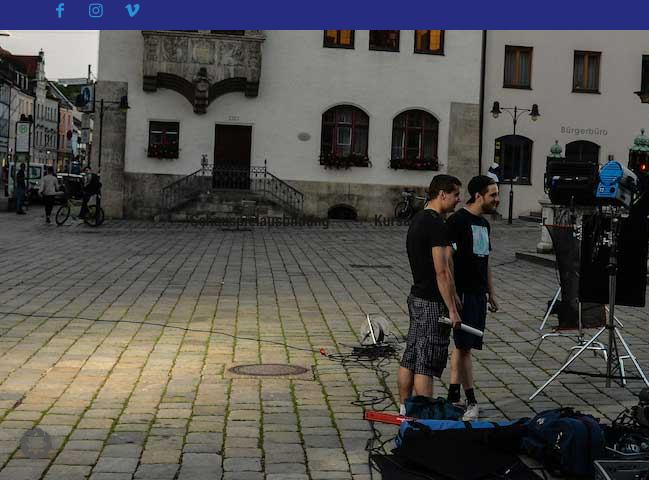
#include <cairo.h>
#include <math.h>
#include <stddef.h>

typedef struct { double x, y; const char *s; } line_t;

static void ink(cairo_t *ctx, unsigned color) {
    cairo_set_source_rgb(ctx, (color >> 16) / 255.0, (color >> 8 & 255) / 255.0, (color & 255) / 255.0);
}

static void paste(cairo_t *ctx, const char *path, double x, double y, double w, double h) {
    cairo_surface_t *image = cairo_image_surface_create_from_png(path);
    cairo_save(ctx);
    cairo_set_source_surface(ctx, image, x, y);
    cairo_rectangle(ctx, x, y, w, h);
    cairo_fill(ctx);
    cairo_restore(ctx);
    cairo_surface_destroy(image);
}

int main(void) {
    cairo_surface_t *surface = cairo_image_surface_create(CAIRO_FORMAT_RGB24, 649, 480);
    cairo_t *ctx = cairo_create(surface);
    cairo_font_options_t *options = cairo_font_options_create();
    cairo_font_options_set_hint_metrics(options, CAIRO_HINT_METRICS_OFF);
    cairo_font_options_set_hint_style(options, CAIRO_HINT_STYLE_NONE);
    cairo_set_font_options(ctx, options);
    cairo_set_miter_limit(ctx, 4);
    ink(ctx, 0xFFFFFF);
    cairo_paint(ctx);
    paste(ctx, "media/1.png", 0, 30, 649, 450);
    ink(ctx, 0x262D80);
    cairo_rectangle(ctx, 0, 0, 649, 30);
    cairo_fill(ctx);
    paste(ctx, "media/2.png", 56, 3, 8, 15);
    paste(ctx, "media/3.png", 89, 3, 14, 15);
    paste(ctx, "media/4.png", 125, 4, 15, 13);
    cairo_select_font_face(ctx, "Roboto Condensed Medium", CAIRO_FONT_SLANT_NORMAL, CAIRO_FONT_WEIGHT_NORMAL);
    cairo_set_font_size(ctx, 16);
    ink(ctx, 0x131313);
    {
        static const line_t items[] = {
            {190, 226, "Schauspielausbildung"},
            {374, 226, "Kursa"},
            {542, 226, "r"},
        };
        for (size_t i = 0; i < sizeof items / sizeof *items; i++) {
            cairo_move_to(ctx, items[i].x, items[i].y);
            cairo_show_text(ctx, items[i].s);
        }
    }
    paste(ctx, "media/5.png", 17, 425, 38, 38);
    cairo_surface_write_to_png(surface, "image.png");
    cairo_font_options_destroy(options);
    cairo_destroy(ctx);
    cairo_surface_destroy(surface);
    return 0;
}
